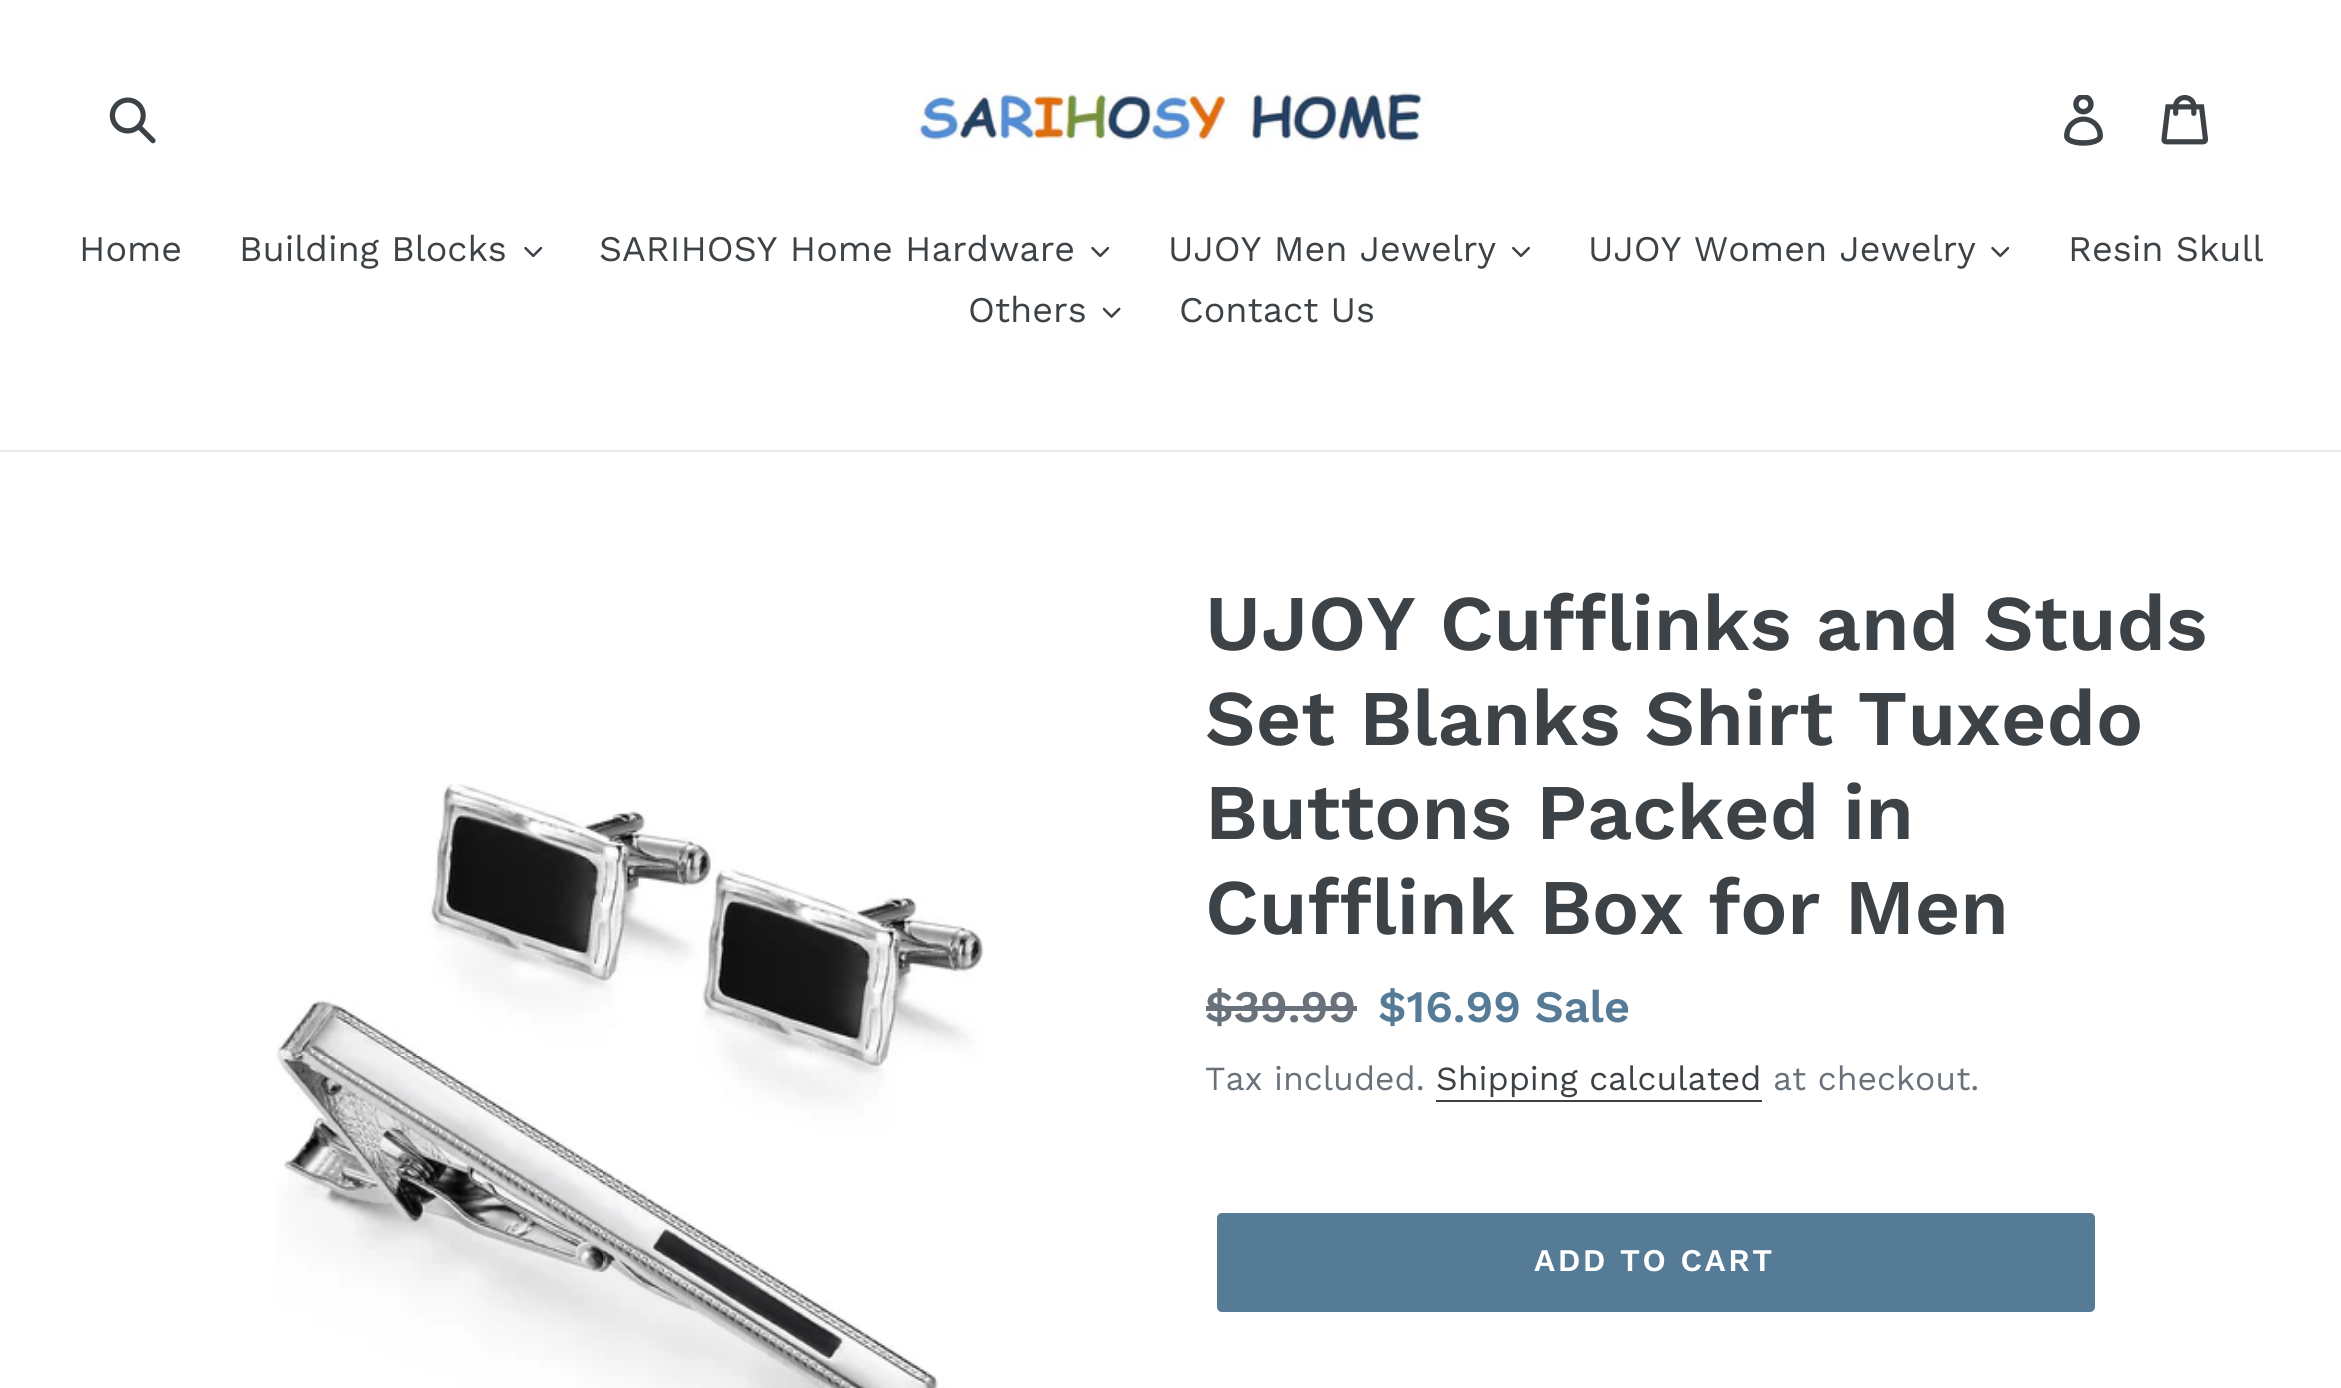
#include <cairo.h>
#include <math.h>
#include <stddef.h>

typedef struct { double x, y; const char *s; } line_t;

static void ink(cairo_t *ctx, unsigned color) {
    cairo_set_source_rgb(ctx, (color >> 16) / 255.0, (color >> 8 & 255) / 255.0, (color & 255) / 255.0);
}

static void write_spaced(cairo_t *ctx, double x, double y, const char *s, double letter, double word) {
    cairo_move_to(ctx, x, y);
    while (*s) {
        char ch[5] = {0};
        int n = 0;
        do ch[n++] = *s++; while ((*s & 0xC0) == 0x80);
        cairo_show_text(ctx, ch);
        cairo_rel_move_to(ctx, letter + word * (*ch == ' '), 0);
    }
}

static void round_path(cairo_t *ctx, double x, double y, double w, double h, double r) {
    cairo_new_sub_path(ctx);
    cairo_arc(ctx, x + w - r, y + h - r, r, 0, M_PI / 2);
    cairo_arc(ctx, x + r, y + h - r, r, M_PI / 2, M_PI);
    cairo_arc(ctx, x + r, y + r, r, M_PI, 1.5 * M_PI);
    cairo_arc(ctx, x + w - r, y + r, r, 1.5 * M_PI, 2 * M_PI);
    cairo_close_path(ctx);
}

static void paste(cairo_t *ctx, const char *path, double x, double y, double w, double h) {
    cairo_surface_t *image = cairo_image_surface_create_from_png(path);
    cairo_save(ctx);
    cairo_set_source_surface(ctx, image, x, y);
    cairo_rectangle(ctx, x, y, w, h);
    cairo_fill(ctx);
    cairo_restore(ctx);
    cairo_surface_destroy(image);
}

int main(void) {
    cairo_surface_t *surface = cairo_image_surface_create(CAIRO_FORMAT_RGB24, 2341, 1388);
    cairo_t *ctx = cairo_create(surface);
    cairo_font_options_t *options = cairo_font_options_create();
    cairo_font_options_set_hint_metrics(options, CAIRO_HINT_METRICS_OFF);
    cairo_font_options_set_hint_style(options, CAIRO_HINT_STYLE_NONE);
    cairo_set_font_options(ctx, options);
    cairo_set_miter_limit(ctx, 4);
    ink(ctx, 0xFFFFFF);
    cairo_paint(ctx);
    paste(ctx, "media/1.png", 109, 97, 47, 47);
    paste(ctx, "media/2.png", 914, 89, 512, 61);
    paste(ctx, "media/3.png", 2064, 95, 39, 51);
    paste(ctx, "media/4.png", 2161, 95, 48, 50);
    ink(ctx, 0xE8E9EB);
    cairo_rectangle(ctx, 0, 450, 2341, 2);
    cairo_fill(ctx);
    cairo_select_font_face(ctx, "Work Sans", CAIRO_FONT_SLANT_NORMAL, CAIRO_FONT_WEIGHT_NORMAL);
    cairo_set_font_size(ctx, 36);
    ink(ctx, 0x3D4246);
    cairo_move_to(ctx, 79, 261);
    cairo_show_text(ctx, "Home");
    cairo_move_to(ctx, 239, 261);
    cairo_show_text(ctx, "Building Blocks");
    paste(ctx, "media/5.png", 524, 246, 18, 12);
    cairo_move_to(ctx, 599, 261);
    cairo_show_text(ctx, "SARIHOSY Home Hardware");
    paste(ctx, "media/5.png", 1091, 246, 18, 12);
    cairo_move_to(ctx, 1168, 261);
    cairo_show_text(ctx, "UJOY Men Jewelry");
    paste(ctx, "media/6.png", 1512, 246, 18, 12);
    cairo_move_to(ctx, 1588, 261);
    cairo_show_text(ctx, "UJOY Women Jewelry");
    paste(ctx, "media/5.png", 1991, 246, 18, 12);
    cairo_move_to(ctx, 2068, 261);
    cairo_show_text(ctx, "Resin Skull");
    cairo_move_to(ctx, 968, 322);
    cairo_show_text(ctx, "Others");
    paste(ctx, "media/7.png", 1103, 307, 18, 11);
    cairo_move_to(ctx, 1179, 322);
    cairo_show_text(ctx, "Contact Us");
    paste(ctx, "media/8.png", 276, 784, 708, 604);
    cairo_select_font_face(ctx, "Work Sans SemiBold", CAIRO_FONT_SLANT_NORMAL, CAIRO_FONT_WEIGHT_NORMAL);
    cairo_set_font_size(ctx, 78.75);
    {
        static const line_t items[] = {
            {1205, 650, "UJOY Cufflinks and Studs"},
            {1205, 745, "Set Blanks Shirt Tuxedo"},
            {1205, 839, "Buttons Packed in"},
            {1205, 934, "Cufflink Box for Men"},
        };
        for (size_t i = 0; i < sizeof items / sizeof *items; i++) {
            cairo_move_to(ctx, items[i].x, items[i].y);
            cairo_show_text(ctx, items[i].s);
        }
    }
    cairo_set_font_size(ctx, 45);
    ink(ctx, 0x69727B);
    cairo_move_to(ctx, 1205, 1022);
    cairo_show_text(ctx, "$39.99");
    cairo_rectangle(ctx, 1206, 1006, 151, 5);
    cairo_fill(ctx);
    ink(ctx, 0x557B97);
    cairo_move_to(ctx, 1378, 1022);
    cairo_show_text(ctx, "$16.99 Sale");
    cairo_select_font_face(ctx, "Work Sans", CAIRO_FONT_SLANT_NORMAL, CAIRO_FONT_WEIGHT_NORMAL);
    cairo_set_font_size(ctx, 33.75);
    ink(ctx, 0x69727B);
    cairo_move_to(ctx, 1205, 1090);
    cairo_show_text(ctx, "Tax included.");
    ink(ctx, 0x3D4246);
    cairo_move_to(ctx, 1436, 1090);
    cairo_show_text(ctx, "Shipping calculated");
    cairo_rectangle(ctx, 1436, 1100, 326, 2);
    cairo_fill(ctx);
    ink(ctx, 0x69727B);
    cairo_move_to(ctx, 1773, 1090);
    cairo_show_text(ctx, "at checkout.");
    ink(ctx, 0x557B97);
    round_path(ctx, 1217, 1213, 878, 99, 5);
    cairo_fill(ctx);
    cairo_select_font_face(ctx, "Work Sans SemiBold", CAIRO_FONT_SLANT_NORMAL, CAIRO_FONT_WEIGHT_NORMAL);
    cairo_set_font_size(ctx, 31.5);
    ink(ctx, 0xFFFFFF);
    write_spaced(ctx, 1534, 1271, "ADD TO CART", 2.5, 0);
    cairo_surface_write_to_png(surface, "image.png");
    cairo_font_options_destroy(options);
    cairo_destroy(ctx);
    cairo_surface_destroy(surface);
    return 0;
}
